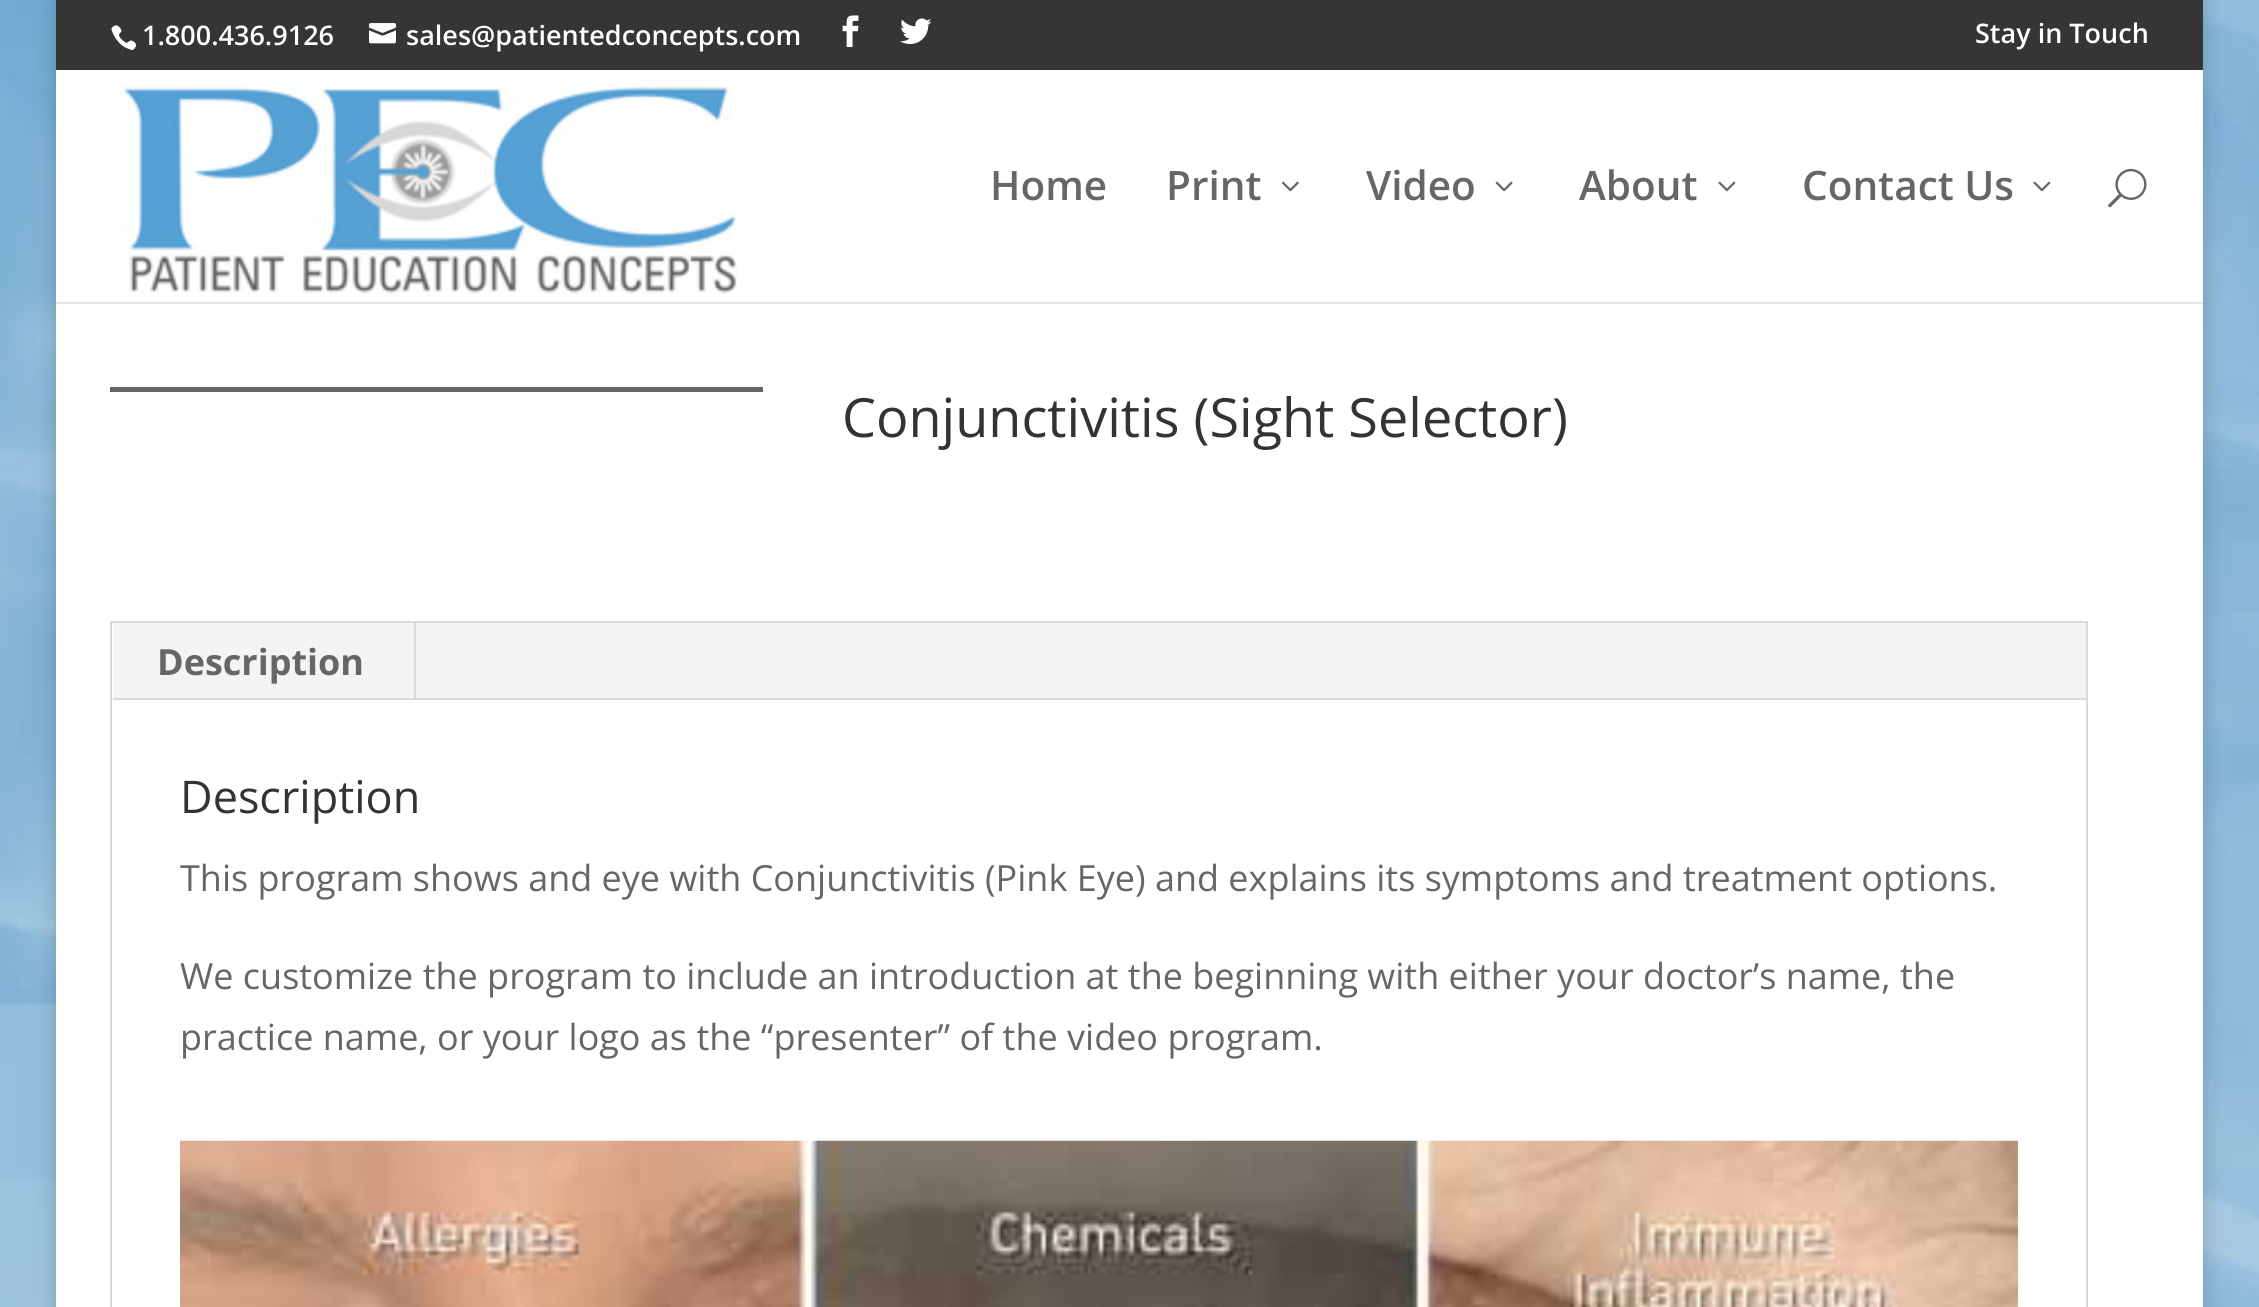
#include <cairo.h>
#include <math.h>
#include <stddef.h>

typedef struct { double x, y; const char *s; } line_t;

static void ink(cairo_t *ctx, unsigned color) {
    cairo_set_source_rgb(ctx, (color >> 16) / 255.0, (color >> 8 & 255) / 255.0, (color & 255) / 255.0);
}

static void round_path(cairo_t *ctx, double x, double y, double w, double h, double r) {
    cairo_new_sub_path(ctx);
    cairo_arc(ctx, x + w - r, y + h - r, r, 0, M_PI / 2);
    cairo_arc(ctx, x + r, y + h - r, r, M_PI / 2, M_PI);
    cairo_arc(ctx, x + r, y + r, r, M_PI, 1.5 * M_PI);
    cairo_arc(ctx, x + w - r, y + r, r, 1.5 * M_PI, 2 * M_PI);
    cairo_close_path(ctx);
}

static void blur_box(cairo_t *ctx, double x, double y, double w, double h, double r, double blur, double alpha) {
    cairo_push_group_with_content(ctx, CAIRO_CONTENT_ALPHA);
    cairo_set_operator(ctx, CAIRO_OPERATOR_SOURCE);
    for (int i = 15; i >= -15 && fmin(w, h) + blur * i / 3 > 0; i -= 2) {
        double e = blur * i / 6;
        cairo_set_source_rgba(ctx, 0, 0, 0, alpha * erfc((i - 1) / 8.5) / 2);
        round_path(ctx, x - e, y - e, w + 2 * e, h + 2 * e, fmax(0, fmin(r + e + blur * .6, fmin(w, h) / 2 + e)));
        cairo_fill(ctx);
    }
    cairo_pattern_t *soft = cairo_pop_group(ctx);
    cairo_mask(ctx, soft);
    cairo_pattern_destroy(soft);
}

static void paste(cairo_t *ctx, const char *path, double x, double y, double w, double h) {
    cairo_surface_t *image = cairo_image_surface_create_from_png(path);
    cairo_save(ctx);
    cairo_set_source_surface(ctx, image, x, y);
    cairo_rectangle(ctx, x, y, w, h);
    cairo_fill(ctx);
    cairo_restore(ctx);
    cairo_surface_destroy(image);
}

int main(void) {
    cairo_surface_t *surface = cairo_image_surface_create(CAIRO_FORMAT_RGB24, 2259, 1307);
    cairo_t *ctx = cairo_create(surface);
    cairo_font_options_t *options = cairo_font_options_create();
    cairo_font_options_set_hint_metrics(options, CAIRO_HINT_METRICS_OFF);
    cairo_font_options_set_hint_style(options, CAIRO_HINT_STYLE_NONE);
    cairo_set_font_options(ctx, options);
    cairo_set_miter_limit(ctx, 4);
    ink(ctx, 0xFFFFFF);
    cairo_paint(ctx);
    paste(ctx, "media/1.png", 0, 0, 2259, 1307);
    ink(ctx, 0x000000);
    blur_box(ctx, 56, 0, 2147, 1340, 0, 11, 0.2);
    ink(ctx, 0x353535);
    cairo_rectangle(ctx, 56, 0, 2147, 70);
    cairo_fill(ctx);
    paste(ctx, "media/2.png", 111, 25, 26, 26);
    cairo_select_font_face(ctx, "Open Sans SemiBold", CAIRO_FONT_SLANT_NORMAL, CAIRO_FONT_WEIGHT_NORMAL);
    cairo_set_font_size(ctx, 27);
    ink(ctx, 0xFFFFFF);
    cairo_move_to(ctx, 142, 45);
    cairo_show_text(ctx, "1.800.436.9126");
    paste(ctx, "media/3.png", 369, 23, 27, 21);
    cairo_move_to(ctx, 406, 45);
    cairo_show_text(ctx, "sales@patientedconcepts.com");
    paste(ctx, "media/4.png", 842, 15, 17, 32);
    paste(ctx, "media/5.png", 900, 18, 32, 26);
    cairo_move_to(ctx, 1975, 43);
    cairo_show_text(ctx, "Stay in Touch");
    ink(ctx, 0xE6E6E6);
    cairo_new_path(ctx);
    cairo_move_to(ctx, 56, 70);
    cairo_line_to(ctx, 56, 304);
    cairo_line_to(ctx, 2203, 304);
    cairo_line_to(ctx, 2203, 70);
    cairo_line_to(ctx, 2203, 302);
    cairo_line_to(ctx, 56, 302);
    cairo_close_path(ctx);
    cairo_fill(ctx);
    ink(ctx, 0xFFFFFF);
    cairo_rectangle(ctx, 56, 70, 2147, 232);
    cairo_fill(ctx);
    paste(ctx, "media/6.png", 119, 86, 618, 208);
    cairo_set_font_size(ctx, 40.5);
    ink(ctx, 0x666666);
    cairo_move_to(ctx, 990, 200);
    cairo_show_text(ctx, "Home");
    cairo_move_to(ctx, 1166, 200);
    cairo_show_text(ctx, "Print");
    paste(ctx, "media/7.png", 1282, 181, 17, 11);
    cairo_move_to(ctx, 1366, 200);
    cairo_show_text(ctx, "Video");
    paste(ctx, "media/8.png", 1495, 181, 18, 11);
    cairo_move_to(ctx, 1579, 200);
    cairo_show_text(ctx, "About");
    paste(ctx, "media/9.png", 1718, 181, 18, 11);
    cairo_move_to(ctx, 1802, 200);
    cairo_show_text(ctx, "Contact Us");
    paste(ctx, "media/9.png", 2033, 181, 18, 11);
    paste(ctx, "media/10.png", 2108, 168, 39, 40);
    ink(ctx, 0xFFFFFF);
    cairo_rectangle(ctx, 56, 304, 2147, 1003);
    cairo_fill(ctx);
    ink(ctx, 0x666666);
    cairo_rectangle(ctx, 110, 387, 653, 5);
    cairo_fill(ctx);
    cairo_select_font_face(ctx, "Open Sans", CAIRO_FONT_SLANT_NORMAL, CAIRO_FONT_WEIGHT_NORMAL);
    cairo_set_font_size(ctx, 54);
    ink(ctx, 0x333333);
    cairo_move_to(ctx, 842, 437);
    cairo_show_text(ctx, "Conjunctivitis (Sight Selector)");
    cairo_rectangle(ctx, 111, 622, 1976, 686);
    ink(ctx, 0xD9D9D9);
    cairo_stroke(ctx);
    ink(ctx, 0xF4F4F4);
    cairo_rectangle(ctx, 113, 623, 1973, 75);
    cairo_fill(ctx);
    ink(ctx, 0xD9D9D9);
    cairo_rectangle(ctx, 414, 623, 2, 77);
    cairo_fill(ctx);
    cairo_select_font_face(ctx, "Open Sans", CAIRO_FONT_SLANT_NORMAL, CAIRO_FONT_WEIGHT_BOLD);
    cairo_set_font_size(ctx, 36);
    ink(ctx, 0x666666);
    cairo_move_to(ctx, 157, 675);
    cairo_show_text(ctx, "Description");
    ink(ctx, 0xD9D9D9);
    cairo_rectangle(ctx, 113, 698, 1973, 2);
    cairo_fill(ctx);
    cairo_select_font_face(ctx, "Open Sans", CAIRO_FONT_SLANT_NORMAL, CAIRO_FONT_WEIGHT_NORMAL);
    cairo_set_font_size(ctx, 45);
    ink(ctx, 0x333333);
    cairo_move_to(ctx, 180, 813);
    cairo_show_text(ctx, "Description");
    cairo_set_font_size(ctx, 36);
    ink(ctx, 0x666666);
    {
        static const line_t items[] = {
            {180, 891, "This program shows and eye with Conjunctivitis (Pink Eye) and explains its symptoms and treatment options."},
            {180, 989, "We customize the program to include an introduction at the beginning with either your doctor’s name, the"},
            {180, 1050, "practice name, or your logo as the “presenter” of the video program."},
        };
        for (size_t i = 0; i < sizeof items / sizeof *items; i++) {
            cairo_move_to(ctx, items[i].x, items[i].y);
            cairo_show_text(ctx, items[i].s);
        }
    }
    paste(ctx, "media/11.png", 180, 1140, 1839, 167);
    cairo_surface_write_to_png(surface, "image.png");
    cairo_font_options_destroy(options);
    cairo_destroy(ctx);
    cairo_surface_destroy(surface);
    return 0;
}
